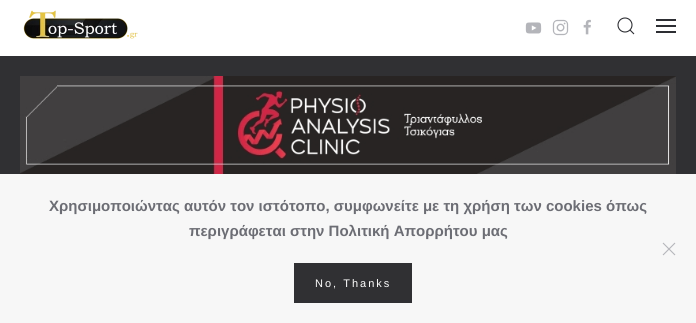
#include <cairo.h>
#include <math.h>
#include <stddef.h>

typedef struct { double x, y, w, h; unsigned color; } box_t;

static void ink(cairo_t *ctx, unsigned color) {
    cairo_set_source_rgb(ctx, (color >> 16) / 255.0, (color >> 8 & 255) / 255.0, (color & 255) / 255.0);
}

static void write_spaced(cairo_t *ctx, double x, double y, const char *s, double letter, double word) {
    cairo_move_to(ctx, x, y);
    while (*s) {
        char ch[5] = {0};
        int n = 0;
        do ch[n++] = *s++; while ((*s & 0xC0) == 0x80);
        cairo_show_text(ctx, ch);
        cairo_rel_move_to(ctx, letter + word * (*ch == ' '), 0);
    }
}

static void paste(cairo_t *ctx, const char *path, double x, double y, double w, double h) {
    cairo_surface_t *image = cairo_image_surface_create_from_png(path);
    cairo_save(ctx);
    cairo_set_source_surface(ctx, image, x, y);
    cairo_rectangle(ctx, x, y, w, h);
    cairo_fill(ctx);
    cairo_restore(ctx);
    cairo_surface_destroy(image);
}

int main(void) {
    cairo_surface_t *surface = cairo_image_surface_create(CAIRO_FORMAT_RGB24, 696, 323);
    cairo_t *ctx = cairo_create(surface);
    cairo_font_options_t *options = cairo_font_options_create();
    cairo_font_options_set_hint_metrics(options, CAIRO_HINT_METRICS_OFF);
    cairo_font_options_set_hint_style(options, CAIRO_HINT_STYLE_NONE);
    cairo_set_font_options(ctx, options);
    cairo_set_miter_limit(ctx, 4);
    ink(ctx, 0xFFFFFF);
    cairo_paint(ctx);
    paste(ctx, "media/1.png", 23, 10, 115, 29);
    paste(ctx, "media/2.png", 525, 22, 17, 12);
    paste(ctx, "media/3.png", 552, 19, 17, 17);
    paste(ctx, "media/4.png", 583, 19, 8, 16);
    cairo_arc(ctx, 625, 25, 7, 0, 2 * M_PI);
    ink(ctx, 0x2D2E33);
    cairo_set_line_width(ctx, 1.1);
    cairo_stroke(ctx);
    cairo_new_path(ctx);
    cairo_move_to(ctx, 630, 30);
    cairo_line_to(ctx, 634, 34);
    cairo_close_path(ctx);
    cairo_stroke(ctx);
    {
        static const box_t items[] = {
            {656, 19, 20, 2, 0x2D2E33},
            {656, 25, 20, 2, 0x2D2E33},
            {656, 31, 20, 2, 0x2D2E33},
            {0, 56, 696, 118, 0x303033},
        };
        for (size_t i = 0; i < sizeof items / sizeof *items; i++) {
            ink(ctx, items[i].color);
            cairo_rectangle(ctx, items[i].x, items[i].y, items[i].w, items[i].h);
            cairo_fill(ctx);
        }
    }
    paste(ctx, "media/5.png", 20, 76, 656, 98);
    ink(ctx, 0xF7F7F7);
    cairo_rectangle(ctx, 0, 174, 696, 149);
    cairo_fill(ctx);
    cairo_select_font_face(ctx, "Liberation Sans", CAIRO_FONT_SLANT_NORMAL, CAIRO_FONT_WEIGHT_BOLD);
    cairo_set_font_size(ctx, 15);
    ink(ctx, 0x6C6D74);
    cairo_move_to(ctx, 49, 211);
    cairo_show_text(ctx, "Χρησιμοποιώντας αυτόν τον ιστότοπο, συμφωνείτε με τη χρήση των cookies όπως");
    cairo_move_to(ctx, 189, 236);
    cairo_show_text(ctx, "περιγράφεται στην Πολιτική Απορρήτου μας");
    cairo_new_path(ctx);
    cairo_move_to(ctx, 663, 243);
    cairo_line_to(ctx, 675, 255);
    cairo_move_to(ctx, 675, 243);
    cairo_line_to(ctx, 663, 255);
    ink(ctx, 0xB4B5BA);
    cairo_stroke(ctx);
    ink(ctx, 0x303033);
    cairo_rectangle(ctx, 294, 263, 118, 40);
    cairo_fill(ctx);
    cairo_select_font_face(ctx, "Liberation Sans", CAIRO_FONT_SLANT_NORMAL, CAIRO_FONT_WEIGHT_NORMAL);
    cairo_set_font_size(ctx, 11);
    ink(ctx, 0xFFFFFF);
    write_spaced(ctx, 315, 287, "No, Thanks", 2, 0);
    cairo_surface_write_to_png(surface, "image.png");
    cairo_font_options_destroy(options);
    cairo_destroy(ctx);
    cairo_surface_destroy(surface);
    return 0;
}
